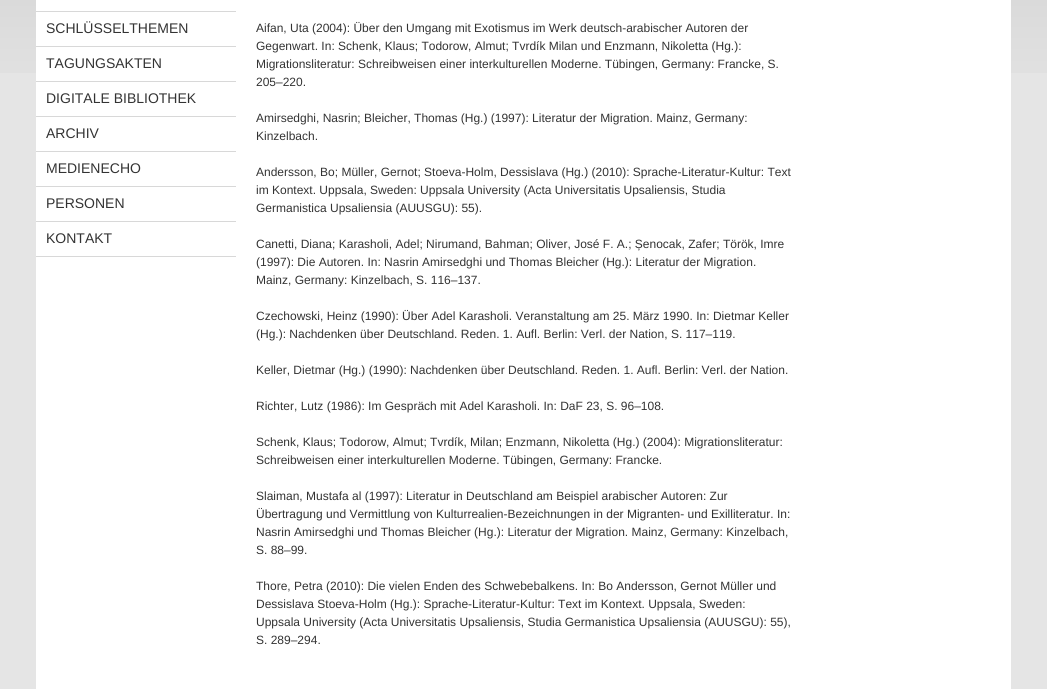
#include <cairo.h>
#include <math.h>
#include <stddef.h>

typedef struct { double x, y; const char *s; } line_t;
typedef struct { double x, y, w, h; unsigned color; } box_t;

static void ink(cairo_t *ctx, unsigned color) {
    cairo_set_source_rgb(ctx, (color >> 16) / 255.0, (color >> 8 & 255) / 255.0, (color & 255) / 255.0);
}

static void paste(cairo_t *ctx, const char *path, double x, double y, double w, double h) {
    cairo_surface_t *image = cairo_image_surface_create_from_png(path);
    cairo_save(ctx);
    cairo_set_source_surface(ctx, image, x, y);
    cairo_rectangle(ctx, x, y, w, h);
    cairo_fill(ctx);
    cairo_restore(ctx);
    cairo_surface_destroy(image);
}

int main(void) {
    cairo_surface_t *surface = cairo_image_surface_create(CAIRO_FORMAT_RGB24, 1047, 689);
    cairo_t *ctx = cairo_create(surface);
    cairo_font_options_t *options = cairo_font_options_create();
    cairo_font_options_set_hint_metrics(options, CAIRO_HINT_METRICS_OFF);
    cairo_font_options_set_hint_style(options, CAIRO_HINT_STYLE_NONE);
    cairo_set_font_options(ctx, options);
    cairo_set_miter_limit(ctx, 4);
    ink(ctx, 0xE5E5E5);
    cairo_paint(ctx);
    paste(ctx, "media/1.png", 0, 0, 1047, 73);
    {
        static const box_t items[] = {
            {36, 0, 975, 689, 0xFFFFFF},
            {36, 11, 200, 1, 0xD8D8D8},
            {36, 46, 200, 1, 0xD8D8D8},
        };
        for (size_t i = 0; i < sizeof items / sizeof *items; i++) {
            ink(ctx, items[i].color);
            cairo_rectangle(ctx, items[i].x, items[i].y, items[i].w, items[i].h);
            cairo_fill(ctx);
        }
    }
    cairo_select_font_face(ctx, "Liberation Sans", CAIRO_FONT_SLANT_NORMAL, CAIRO_FONT_WEIGHT_NORMAL);
    cairo_set_font_size(ctx, 14);
    ink(ctx, 0x333333);
    cairo_move_to(ctx, 46, 33);
    cairo_show_text(ctx, "SCHLÜSSELTHEMEN");
    ink(ctx, 0xD8D8D8);
    cairo_rectangle(ctx, 36, 81, 200, 1);
    cairo_fill(ctx);
    ink(ctx, 0x333333);
    cairo_move_to(ctx, 46, 68);
    cairo_show_text(ctx, "TAGUNGSAKTEN");
    ink(ctx, 0xD8D8D8);
    cairo_rectangle(ctx, 36, 116, 200, 1);
    cairo_fill(ctx);
    ink(ctx, 0x333333);
    cairo_move_to(ctx, 46, 103);
    cairo_show_text(ctx, "DIGITALE BIBLIOTHEK");
    ink(ctx, 0xD8D8D8);
    cairo_rectangle(ctx, 36, 151, 200, 1);
    cairo_fill(ctx);
    ink(ctx, 0x333333);
    cairo_move_to(ctx, 46, 138);
    cairo_show_text(ctx, "ARCHIV");
    ink(ctx, 0xD8D8D8);
    cairo_rectangle(ctx, 36, 186, 200, 1);
    cairo_fill(ctx);
    ink(ctx, 0x333333);
    cairo_move_to(ctx, 46, 173);
    cairo_show_text(ctx, "MEDIENECHO");
    ink(ctx, 0xD8D8D8);
    cairo_rectangle(ctx, 36, 221, 200, 1);
    cairo_fill(ctx);
    ink(ctx, 0x333333);
    cairo_move_to(ctx, 46, 208);
    cairo_show_text(ctx, "PERSONEN");
    ink(ctx, 0xD8D8D8);
    cairo_rectangle(ctx, 36, 256, 200, 1);
    cairo_fill(ctx);
    ink(ctx, 0x333333);
    cairo_move_to(ctx, 46, 243);
    cairo_show_text(ctx, "KONTAKT");
    cairo_set_font_size(ctx, 12);
    {
        static const line_t items[] = {
            {256, 32, "Aifan, Uta (2004): Über den Umgang mit Exotismus im Werk deutsch-arabischer Autoren der"},
            {256, 50, "Gegenwart. In: Schenk, Klaus; Todorow, Almut; Tvrdík Milan und Enzmann, Nikoletta (Hg.):"},
            {256, 68, "Migrationsliteratur: Schreibweisen einer interkulturellen Moderne. Tübingen, Germany: Francke, S."},
            {256, 86, "205–220."},
            {256, 122, "Amirsedghi, Nasrin; Bleicher, Thomas (Hg.) (1997): Literatur der Migration. Mainz, Germany:"},
            {256, 140, "Kinzelbach."},
            {256, 176, "Andersson, Bo; Müller, Gernot; Stoeva-Holm, Dessislava (Hg.) (2010): Sprache-Literatur-Kultur: Text"},
            {256, 194, "im Kontext. Uppsala, Sweden: Uppsala University (Acta Universitatis Upsaliensis, Studia"},
            {256, 212, "Germanistica Upsaliensia (AUUSGU): 55)."},
            {256, 248, "Canetti, Diana; Karasholi, Adel; Nirumand, Bahman; Oliver, José F. A.; Șenocak, Zafer; Török, Imre"},
            {256, 266, "(1997): Die Autoren. In: Nasrin Amirsedghi und Thomas Bleicher (Hg.): Literatur der Migration."},
            {256, 284, "Mainz, Germany: Kinzelbach, S. 116–137."},
            {256, 320, "Czechowski, Heinz (1990): Über Adel Karasholi. Veranstaltung am 25. März 1990. In: Dietmar Keller"},
            {256, 338, "(Hg.): Nachdenken über Deutschland. Reden. 1. Aufl. Berlin: Verl. der Nation, S. 117–119."},
            {256, 374, "Keller, Dietmar (Hg.) (1990): Nachdenken über Deutschland. Reden. 1. Aufl. Berlin: Verl. der Nation."},
            {256, 410, "Richter, Lutz (1986): Im Gespräch mit Adel Karasholi. In: DaF 23, S. 96–108."},
            {256, 446, "Schenk, Klaus; Todorow, Almut; Tvrdík, Milan; Enzmann, Nikoletta (Hg.) (2004): Migrationsliteratur:"},
            {256, 464, "Schreibweisen einer interkulturellen Moderne. Tübingen, Germany: Francke."},
            {256, 500, "Slaiman, Mustafa al (1997): Literatur in Deutschland am Beispiel arabischer Autoren: Zur"},
            {256, 518, "Übertragung und Vermittlung von Kulturrealien-Bezeichnungen in der Migranten- und Exilliteratur. In:"},
            {256, 536, "Nasrin Amirsedghi und Thomas Bleicher (Hg.): Literatur der Migration. Mainz, Germany: Kinzelbach,"},
            {256, 554, "S. 88–99."},
            {256, 590, "Thore, Petra (2010): Die vielen Enden des Schwebebalkens. In: Bo Andersson, Gernot Müller und"},
            {256, 608, "Dessislava Stoeva-Holm (Hg.): Sprache-Literatur-Kultur: Text im Kontext. Uppsala, Sweden:"},
            {256, 626, "Uppsala University (Acta Universitatis Upsaliensis, Studia Germanistica Upsaliensia (AUUSGU): 55),"},
            {256, 644, "S. 289–294."},
        };
        for (size_t i = 0; i < sizeof items / sizeof *items; i++) {
            cairo_move_to(ctx, items[i].x, items[i].y);
            cairo_show_text(ctx, items[i].s);
        }
    }
    cairo_surface_write_to_png(surface, "image.png");
    cairo_font_options_destroy(options);
    cairo_destroy(ctx);
    cairo_surface_destroy(surface);
    return 0;
}
